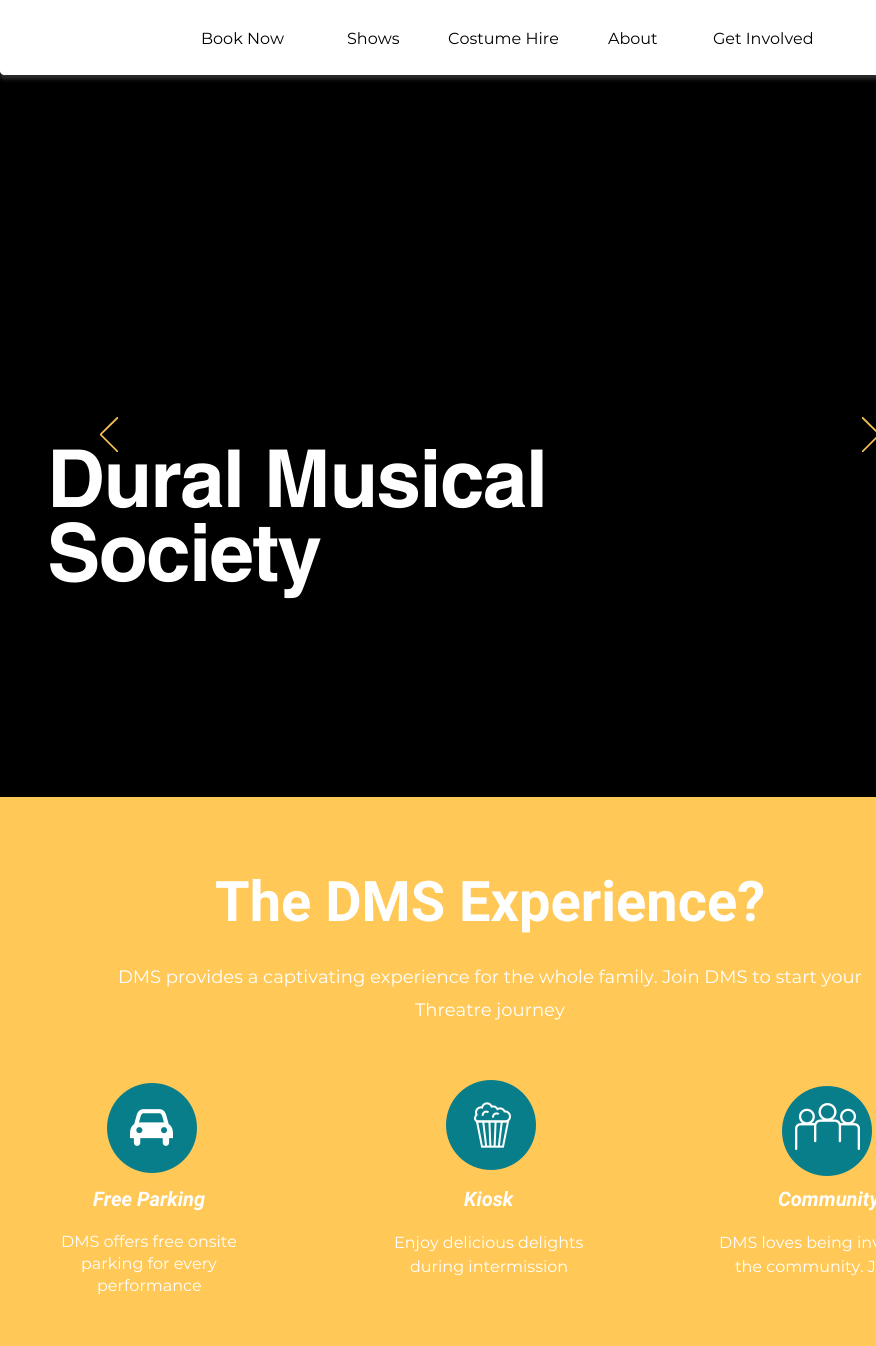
#include <cairo.h>
#include <math.h>
#include <stddef.h>

typedef struct { double x, y; const char *s; } line_t;

static void ink(cairo_t *ctx, unsigned color) {
    cairo_set_source_rgb(ctx, (color >> 16) / 255.0, (color >> 8 & 255) / 255.0, (color & 255) / 255.0);
}

static void write_spaced(cairo_t *ctx, double x, double y, const char *s, double letter, double word) {
    cairo_move_to(ctx, x, y);
    while (*s) {
        char ch[5] = {0};
        int n = 0;
        do ch[n++] = *s++; while ((*s & 0xC0) == 0x80);
        cairo_show_text(ctx, ch);
        cairo_rel_move_to(ctx, letter + word * (*ch == ' '), 0);
    }
}

static void round_path(cairo_t *ctx, double x, double y, double w, double h, double r) {
    cairo_new_sub_path(ctx);
    cairo_arc(ctx, x + w - r, y + h - r, r, 0, M_PI / 2);
    cairo_arc(ctx, x + r, y + h - r, r, M_PI / 2, M_PI);
    cairo_arc(ctx, x + r, y + r, r, M_PI, 1.5 * M_PI);
    cairo_arc(ctx, x + w - r, y + r, r, 1.5 * M_PI, 2 * M_PI);
    cairo_close_path(ctx);
}

static void blur_box(cairo_t *ctx, double x, double y, double w, double h, double r, double blur, double alpha) {
    cairo_push_group_with_content(ctx, CAIRO_CONTENT_ALPHA);
    cairo_set_operator(ctx, CAIRO_OPERATOR_SOURCE);
    for (int i = 15; i >= -15 && fmin(w, h) + blur * i / 3 > 0; i -= 2) {
        double e = blur * i / 6;
        cairo_set_source_rgba(ctx, 0, 0, 0, alpha * erfc((i - 1) / 8.5) / 2);
        round_path(ctx, x - e, y - e, w + 2 * e, h + 2 * e, fmax(0, fmin(r + e + blur * .6, fmin(w, h) / 2 + e)));
        cairo_fill(ctx);
    }
    cairo_pattern_t *soft = cairo_pop_group(ctx);
    cairo_mask(ctx, soft);
    cairo_pattern_destroy(soft);
}

static void paste(cairo_t *ctx, const char *path, double x, double y, double w, double h) {
    cairo_surface_t *image = cairo_image_surface_create_from_png(path);
    cairo_save(ctx);
    cairo_set_source_surface(ctx, image, x, y);
    cairo_rectangle(ctx, x, y, w, h);
    cairo_fill(ctx);
    cairo_restore(ctx);
    cairo_surface_destroy(image);
}

int main(void) {
    cairo_surface_t *surface = cairo_image_surface_create(CAIRO_FORMAT_RGB24, 876, 1346);
    cairo_t *ctx = cairo_create(surface);
    cairo_font_options_t *options = cairo_font_options_create();
    cairo_font_options_set_hint_metrics(options, CAIRO_HINT_METRICS_OFF);
    cairo_font_options_set_hint_style(options, CAIRO_HINT_STYLE_NONE);
    cairo_set_font_options(ctx, options);
    cairo_set_miter_limit(ctx, 4);
    ink(ctx, 0x000000);
    cairo_paint(ctx);
    ink(ctx, 0x404040);
    blur_box(ctx, 0, 4, 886, 75, 4, 2, 0.72);
    ink(ctx, 0xFFFFFF);
    cairo_new_path(ctx);
    cairo_move_to(ctx, 0, 0);
    cairo_line_to(ctx, 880, 0);
    cairo_line_to(ctx, 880, 71);
    cairo_curve_to(ctx, 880, 73, 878, 75, 876, 75);
    cairo_line_to(ctx, 4, 75);
    cairo_curve_to(ctx, 2, 75, 0, 73, 0, 71);
    cairo_close_path(ctx);
    cairo_fill(ctx);
    cairo_select_font_face(ctx, "Montserrat", CAIRO_FONT_SLANT_NORMAL, CAIRO_FONT_WEIGHT_NORMAL);
    cairo_set_font_size(ctx, 16);
    ink(ctx, 0x000000);
    {
        static const line_t items[] = {
            {201, 44, "Book Now"},
            {347, 44, "Shows"},
            {448, 44, "Costume Hire"},
            {608, 44, "About"},
            {713, 44, "Get Involved"},
        };
        for (size_t i = 0; i < sizeof items / sizeof *items; i++) {
            cairo_move_to(ctx, items[i].x, items[i].y);
            cairo_show_text(ctx, items[i].s);
        }
    }
    cairo_select_font_face(ctx, "helvetica", CAIRO_FONT_SLANT_NORMAL, CAIRO_FONT_WEIGHT_BOLD);
    cairo_set_font_size(ctx, 80);
    ink(ctx, 0xFFFFFF);
    write_spaced(ctx, 47, 507, "Dural Musical", -1.6, 0);
    cairo_save(ctx);
    cairo_rectangle(ctx, 100, 417, 18, 35);
    cairo_clip(ctx);
    cairo_new_path(ctx);
    cairo_move_to(ctx, 117.5, 452);
    cairo_line_to(ctx, 100, 434.5);
    cairo_line_to(ctx, 117.5, 417);
    cairo_line_to(ctx, 118, 418);
    cairo_line_to(ctx, 101, 434.5);
    cairo_line_to(ctx, 118, 451.5);
    cairo_close_path(ctx);
    ink(ctx, 0xFFC857);
    cairo_set_line_width(ctx, 0.9);
    cairo_stroke(ctx);
    cairo_restore(ctx);
    cairo_save(ctx);
    cairo_rectangle(ctx, 862, 417, 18, 35);
    cairo_clip(ctx);
    cairo_new_path(ctx);
    cairo_move_to(ctx, 862.5, 452);
    cairo_line_to(ctx, 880, 434.5);
    cairo_line_to(ctx, 862.5, 417);
    cairo_line_to(ctx, 862, 418);
    cairo_line_to(ctx, 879, 434.5);
    cairo_line_to(ctx, 862, 451.5);
    cairo_close_path(ctx);
    ink(ctx, 0xFFC857);
    cairo_set_line_width(ctx, 0.9);
    cairo_stroke(ctx);
    cairo_restore(ctx);
    write_spaced(ctx, 47, 581, "Society", -1.6, 0);
    ink(ctx, 0xFFC857);
    cairo_rectangle(ctx, 0, 797, 876, 549);
    cairo_fill(ctx);
    cairo_select_font_face(ctx, "Roboto", CAIRO_FONT_SLANT_NORMAL, CAIRO_FONT_WEIGHT_BOLD);
    cairo_set_font_size(ctx, 56);
    ink(ctx, 0xFFFFFF);
    cairo_move_to(ctx, 215, 921);
    cairo_show_text(ctx, "The DMS Experience?");
    cairo_select_font_face(ctx, "Montserrat", CAIRO_FONT_SLANT_NORMAL, CAIRO_FONT_WEIGHT_NORMAL);
    cairo_set_font_size(ctx, 18);
    cairo_move_to(ctx, 118, 983);
    cairo_show_text(ctx, "DMS provides a captivating experience for the whole family. Join DMS to start your");
    cairo_move_to(ctx, 415, 1016);
    cairo_show_text(ctx, "Threatre journey");
    ink(ctx, 0x087E8B);
    cairo_new_path(ctx);
    cairo_move_to(ctx, 197, 1128);
    cairo_curve_to(ctx, 197, 1153, 177, 1173, 152, 1173);
    cairo_curve_to(ctx, 127, 1173, 107, 1153, 107, 1128);
    cairo_curve_to(ctx, 107, 1103, 127, 1083, 152, 1083);
    cairo_curve_to(ctx, 177, 1083, 197, 1103, 197, 1128);
    cairo_close_path(ctx);
    cairo_fill(ctx);
    cairo_new_path(ctx);
    cairo_move_to(ctx, 536, 1125);
    cairo_curve_to(ctx, 536, 1150, 516, 1170, 491, 1170);
    cairo_curve_to(ctx, 466, 1170, 446, 1150, 446, 1125);
    cairo_curve_to(ctx, 446, 1100, 466, 1080, 491, 1080);
    cairo_curve_to(ctx, 516, 1080, 536, 1100, 536, 1125);
    cairo_close_path(ctx);
    cairo_fill(ctx);
    cairo_new_path(ctx);
    cairo_move_to(ctx, 872, 1131);
    cairo_curve_to(ctx, 872, 1156, 852, 1176, 827, 1176);
    cairo_curve_to(ctx, 802, 1176, 782, 1156, 782, 1131);
    cairo_curve_to(ctx, 782, 1106, 802, 1086, 827, 1086);
    cairo_curve_to(ctx, 852, 1086, 872, 1106, 872, 1131);
    cairo_close_path(ctx);
    cairo_fill(ctx);
    paste(ctx, "media/1.png", 130, 1109, 43, 37);
    paste(ctx, "media/2.png", 474, 1102, 37, 46);
    paste(ctx, "media/3.png", 795, 1103, 65, 47);
    cairo_select_font_face(ctx, "Roboto", CAIRO_FONT_SLANT_ITALIC, CAIRO_FONT_WEIGHT_BOLD);
    cairo_set_font_size(ctx, 20);
    ink(ctx, 0xFFFFFF);
    {
        static const line_t items[] = {
            {93, 1206, "Free Parking"},
            {464, 1206, "Kiosk"},
            {778, 1206, "Community"},
        };
        for (size_t i = 0; i < sizeof items / sizeof *items; i++) {
            cairo_move_to(ctx, items[i].x, items[i].y);
            cairo_show_text(ctx, items[i].s);
        }
    }
    cairo_select_font_face(ctx, "Montserrat", CAIRO_FONT_SLANT_NORMAL, CAIRO_FONT_WEIGHT_NORMAL);
    cairo_set_font_size(ctx, 16);
    {
        static const line_t items[] = {
            {61, 1247, "DMS offers free onsite"},
            {81, 1269, "parking for every"},
            {97, 1291, "performance"},
            {394, 1248, "Enjoy delicious delights"},
            {410, 1272, "during intermission"},
            {719, 1248, "DMS loves being inv"},
            {735, 1272, "the community. J"},
        };
        for (size_t i = 0; i < sizeof items / sizeof *items; i++) {
            cairo_move_to(ctx, items[i].x, items[i].y);
            cairo_show_text(ctx, items[i].s);
        }
    }
    cairo_surface_write_to_png(surface, "image.png");
    cairo_font_options_destroy(options);
    cairo_destroy(ctx);
    cairo_surface_destroy(surface);
    return 0;
}
